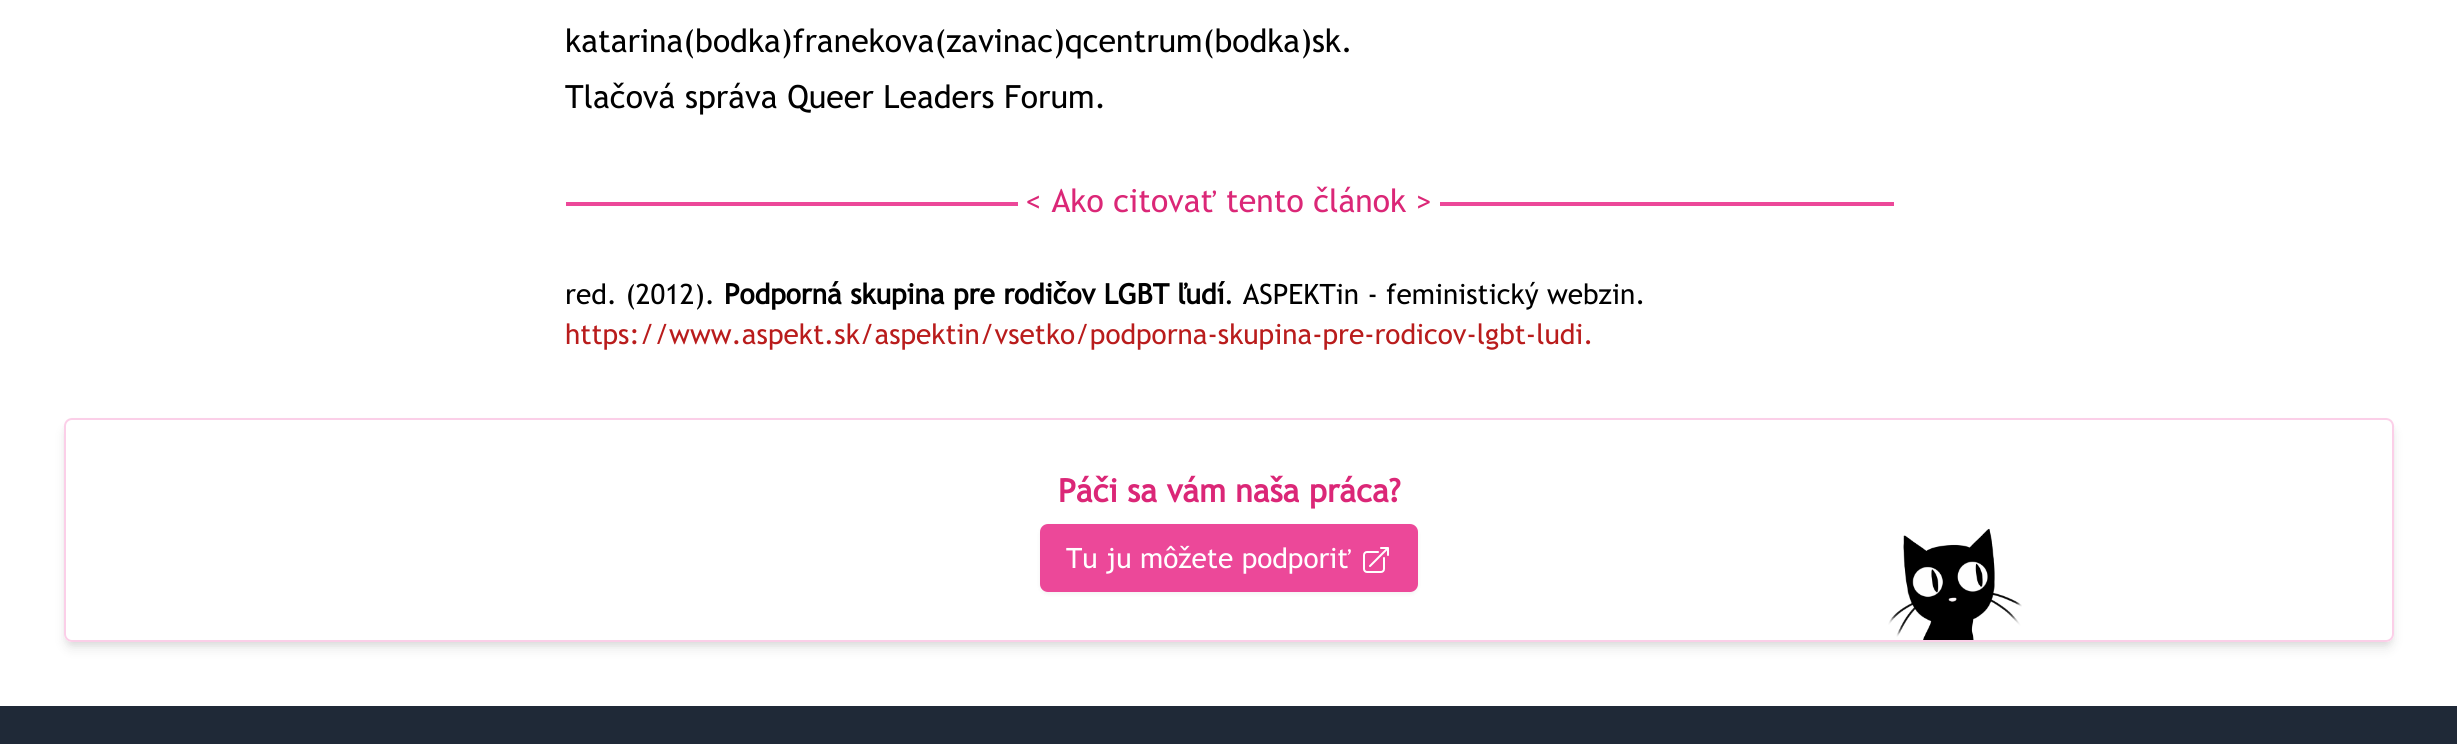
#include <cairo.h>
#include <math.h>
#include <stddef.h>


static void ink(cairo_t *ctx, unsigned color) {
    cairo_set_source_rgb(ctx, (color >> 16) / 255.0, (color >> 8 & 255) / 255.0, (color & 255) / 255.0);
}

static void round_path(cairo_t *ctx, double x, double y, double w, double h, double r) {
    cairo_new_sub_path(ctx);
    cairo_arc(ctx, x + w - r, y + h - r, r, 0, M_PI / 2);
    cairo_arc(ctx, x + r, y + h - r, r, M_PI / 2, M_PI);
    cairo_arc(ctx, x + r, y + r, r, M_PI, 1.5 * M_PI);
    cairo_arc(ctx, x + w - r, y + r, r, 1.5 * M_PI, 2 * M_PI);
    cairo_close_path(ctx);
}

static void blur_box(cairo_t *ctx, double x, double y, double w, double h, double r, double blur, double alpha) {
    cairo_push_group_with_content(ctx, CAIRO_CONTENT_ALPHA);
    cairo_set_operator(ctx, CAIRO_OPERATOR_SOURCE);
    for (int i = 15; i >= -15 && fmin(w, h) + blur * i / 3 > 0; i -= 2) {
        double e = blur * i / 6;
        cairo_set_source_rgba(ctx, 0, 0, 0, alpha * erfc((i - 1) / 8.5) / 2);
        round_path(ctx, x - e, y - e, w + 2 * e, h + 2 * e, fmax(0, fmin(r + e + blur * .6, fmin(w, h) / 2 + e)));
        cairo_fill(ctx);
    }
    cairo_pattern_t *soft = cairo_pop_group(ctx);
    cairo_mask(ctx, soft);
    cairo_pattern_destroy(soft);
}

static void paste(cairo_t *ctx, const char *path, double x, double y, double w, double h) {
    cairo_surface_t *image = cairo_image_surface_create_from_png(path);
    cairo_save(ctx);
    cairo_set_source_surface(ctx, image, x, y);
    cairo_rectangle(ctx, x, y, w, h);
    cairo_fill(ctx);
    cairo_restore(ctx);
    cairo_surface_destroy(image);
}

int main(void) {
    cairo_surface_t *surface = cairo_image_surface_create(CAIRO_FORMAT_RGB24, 2457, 744);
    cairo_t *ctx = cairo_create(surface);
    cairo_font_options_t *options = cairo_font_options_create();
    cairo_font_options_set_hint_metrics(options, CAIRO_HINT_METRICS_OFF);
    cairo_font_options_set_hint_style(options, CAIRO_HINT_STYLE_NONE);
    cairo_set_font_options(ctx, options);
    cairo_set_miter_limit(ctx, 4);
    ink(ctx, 0xFFFFFF);
    cairo_paint(ctx);
    cairo_select_font_face(ctx, "Trebuchet MS", CAIRO_FONT_SLANT_NORMAL, CAIRO_FONT_WEIGHT_NORMAL);
    cairo_set_font_size(ctx, 32);
    ink(ctx, 0x000000);
    cairo_move_to(ctx, 565, 52);
    cairo_show_text(ctx, "katarina(bodka)franekova(zavinac)qcentrum(bodka)sk.");
    cairo_move_to(ctx, 565, 108);
    cairo_show_text(ctx, "Tlačová správa Queer Leaders Forum.");
    ink(ctx, 0xEC4899);
    cairo_rectangle(ctx, 566, 202, 1328, 4);
    cairo_fill(ctx);
    ink(ctx, 0xFFFFFF);
    cairo_rectangle(ctx, 1018, 202, 422, 4);
    cairo_fill(ctx);
    ink(ctx, 0xDB2777);
    cairo_move_to(ctx, 1025, 212);
    cairo_show_text(ctx, "< Ako citovať tento článok >");
    cairo_set_font_size(ctx, 28);
    ink(ctx, 0x000000);
    cairo_move_to(ctx, 565, 304);
    cairo_show_text(ctx, "red. (2012).");
    cairo_select_font_face(ctx, "Trebuchet MS", CAIRO_FONT_SLANT_NORMAL, CAIRO_FONT_WEIGHT_BOLD);
    cairo_move_to(ctx, 724, 304);
    cairo_show_text(ctx, "Podporná skupina pre rodičov LGBT ľudí");
    cairo_select_font_face(ctx, "Trebuchet MS", CAIRO_FONT_SLANT_NORMAL, CAIRO_FONT_WEIGHT_NORMAL);
    cairo_move_to(ctx, 1224, 304);
    cairo_show_text(ctx, ". ASPEKTin - feministický webzin.");
    ink(ctx, 0xB91C1C);
    cairo_move_to(ctx, 565, 344);
    cairo_show_text(ctx, "https://www.aspekt.sk/aspektin/vsetko/podporna-skupina-pre-rodicov-lgbt-ludi.");
    cairo_save(ctx);
    cairo_set_fill_rule(ctx, CAIRO_FILL_RULE_EVEN_ODD);
    cairo_new_path(ctx);
    cairo_move_to(ctx, 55, 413);
    cairo_line_to(ctx, 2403, 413);
    cairo_line_to(ctx, 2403, 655);
    cairo_line_to(ctx, 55, 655);
    cairo_close_path(ctx);
    cairo_move_to(ctx, 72, 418);
    cairo_line_to(ctx, 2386, 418);
    cairo_curve_to(ctx, 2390.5, 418, 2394, 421.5, 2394, 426);
    cairo_line_to(ctx, 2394, 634);
    cairo_curve_to(ctx, 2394, 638.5, 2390.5, 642, 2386, 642);
    cairo_line_to(ctx, 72, 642);
    cairo_curve_to(ctx, 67.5, 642, 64, 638.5, 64, 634);
    cairo_line_to(ctx, 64, 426);
    cairo_curve_to(ctx, 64, 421.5, 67.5, 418, 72, 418);
    cairo_close_path(ctx);
    cairo_clip(ctx);
    ink(ctx, 0x000000);
    blur_box(ctx, 68, 426, 2322, 216, 4, 4, 0.1);
    cairo_restore(ctx);
    cairo_save(ctx);
    cairo_set_fill_rule(ctx, CAIRO_FILL_RULE_EVEN_ODD);
    cairo_new_path(ctx);
    cairo_move_to(ctx, 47, 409);
    cairo_line_to(ctx, 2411, 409);
    cairo_line_to(ctx, 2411, 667);
    cairo_line_to(ctx, 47, 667);
    cairo_close_path(ctx);
    cairo_move_to(ctx, 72, 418);
    cairo_line_to(ctx, 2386, 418);
    cairo_curve_to(ctx, 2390.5, 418, 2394, 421.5, 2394, 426);
    cairo_line_to(ctx, 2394, 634);
    cairo_curve_to(ctx, 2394, 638.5, 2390.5, 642, 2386, 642);
    cairo_line_to(ctx, 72, 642);
    cairo_curve_to(ctx, 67.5, 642, 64, 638.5, 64, 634);
    cairo_line_to(ctx, 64, 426);
    cairo_curve_to(ctx, 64, 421.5, 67.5, 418, 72, 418);
    cairo_close_path(ctx);
    cairo_clip(ctx);
    ink(ctx, 0x000000);
    blur_box(ctx, 66, 428, 2326, 220, 6, 6, 0.1);
    cairo_restore(ctx);
    round_path(ctx, 65, 419, 2328, 222, 7);
    ink(ctx, 0xFBCFE8);
    cairo_stroke(ctx);
    cairo_select_font_face(ctx, "Trebuchet MS", CAIRO_FONT_SLANT_NORMAL, CAIRO_FONT_WEIGHT_BOLD);
    cairo_set_font_size(ctx, 32);
    ink(ctx, 0xDB2777);
    cairo_move_to(ctx, 1058, 502);
    cairo_show_text(ctx, "Páči sa vám naša práca?");
    ink(ctx, 0x000000);
    blur_box(ctx, 1040, 526, 378, 68, 8, 2, 0.05);
    ink(ctx, 0xEC4899);
    round_path(ctx, 1041, 525, 376, 66, 7);
    cairo_fill_preserve(ctx);
    cairo_stroke(ctx);
    cairo_select_font_face(ctx, "Trebuchet MS", CAIRO_FONT_SLANT_NORMAL, CAIRO_FONT_WEIGHT_NORMAL);
    cairo_set_font_size(ctx, 28);
    ink(ctx, 0xFFFFFF);
    cairo_move_to(ctx, 1066, 568);
    cairo_show_text(ctx, "Tu ju môžete podporiť");
    paste(ctx, "media/1.png", 1363, 547, 26, 26);
    paste(ctx, "media/2.png", 1888, 528, 134, 112);
    ink(ctx, 0x1F2937);
    cairo_rectangle(ctx, 0, 706, 2457, 38);
    cairo_fill(ctx);
    cairo_surface_write_to_png(surface, "image.png");
    cairo_font_options_destroy(options);
    cairo_destroy(ctx);
    cairo_surface_destroy(surface);
    return 0;
}
